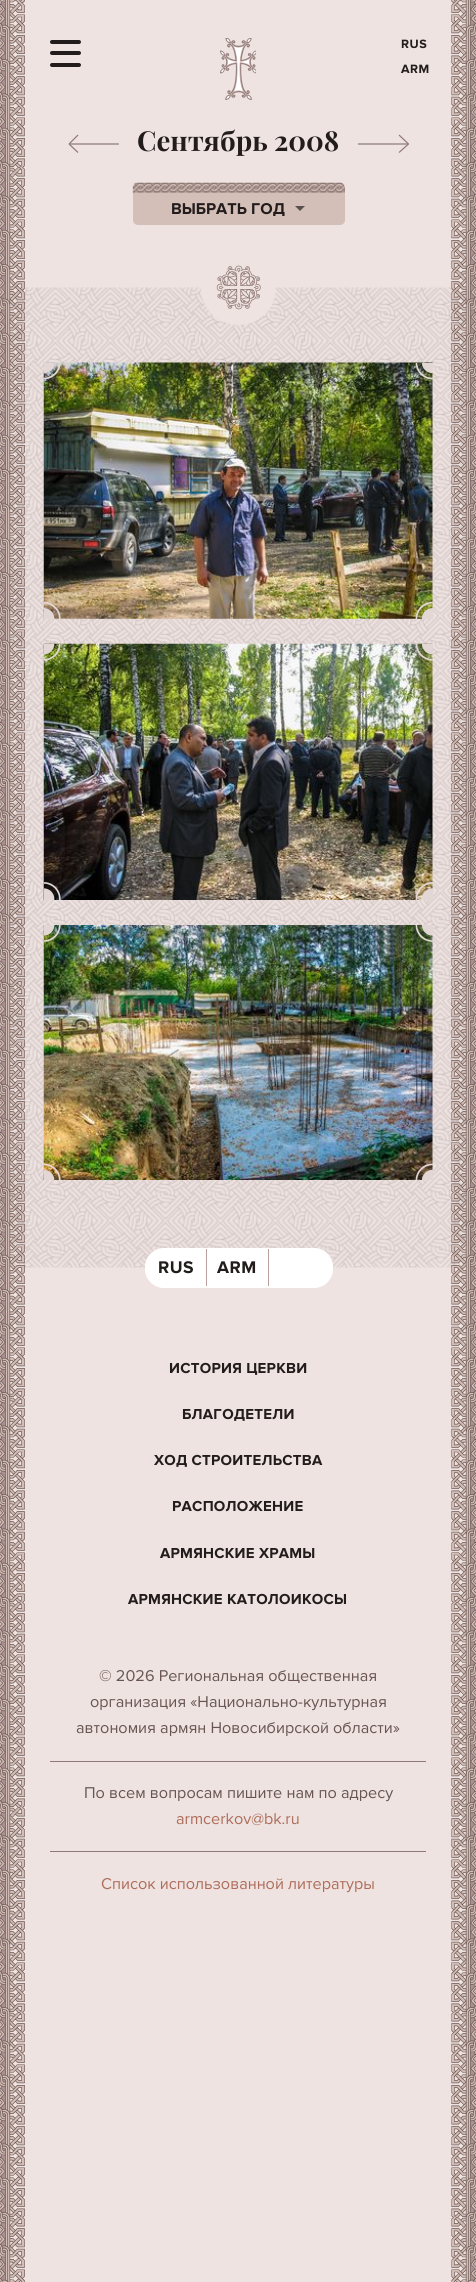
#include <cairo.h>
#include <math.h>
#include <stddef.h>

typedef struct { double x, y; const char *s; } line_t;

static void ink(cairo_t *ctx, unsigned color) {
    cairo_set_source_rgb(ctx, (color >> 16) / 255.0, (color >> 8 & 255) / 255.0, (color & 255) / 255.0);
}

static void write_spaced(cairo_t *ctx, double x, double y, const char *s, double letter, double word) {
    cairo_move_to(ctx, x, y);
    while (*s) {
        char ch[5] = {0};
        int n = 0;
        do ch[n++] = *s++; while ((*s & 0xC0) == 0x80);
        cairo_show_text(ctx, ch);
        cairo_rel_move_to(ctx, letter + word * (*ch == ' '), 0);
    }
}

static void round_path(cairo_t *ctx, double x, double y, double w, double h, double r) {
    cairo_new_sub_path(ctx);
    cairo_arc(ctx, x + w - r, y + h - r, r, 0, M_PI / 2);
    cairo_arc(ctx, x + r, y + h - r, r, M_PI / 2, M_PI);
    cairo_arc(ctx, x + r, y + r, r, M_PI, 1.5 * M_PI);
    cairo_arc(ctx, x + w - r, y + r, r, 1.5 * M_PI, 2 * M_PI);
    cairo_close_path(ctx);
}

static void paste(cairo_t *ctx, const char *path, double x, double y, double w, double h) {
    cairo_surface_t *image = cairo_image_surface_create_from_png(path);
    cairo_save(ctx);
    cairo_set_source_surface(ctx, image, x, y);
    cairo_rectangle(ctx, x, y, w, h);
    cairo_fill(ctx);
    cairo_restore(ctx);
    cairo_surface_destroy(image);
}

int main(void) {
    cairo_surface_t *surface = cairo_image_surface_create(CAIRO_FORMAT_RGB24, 476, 2282);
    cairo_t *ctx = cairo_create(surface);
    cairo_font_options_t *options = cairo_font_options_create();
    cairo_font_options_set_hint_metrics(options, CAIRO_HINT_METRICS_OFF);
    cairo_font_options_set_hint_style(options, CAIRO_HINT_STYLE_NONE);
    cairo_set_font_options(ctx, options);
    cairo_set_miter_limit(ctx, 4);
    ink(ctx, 0xEEE3E0);
    cairo_paint(ctx);
    paste(ctx, "media/6.png", 3, 287, 470, 981);
    paste(ctx, "media/1.png", 0, 0, 25, 2282);
    ink(ctx, 0x221D1C);
    round_path(ctx, 50, 40, 31, 4, 2);
    cairo_fill(ctx);
    round_path(ctx, 50, 51, 31, 4, 2);
    cairo_fill(ctx);
    round_path(ctx, 50, 63, 31, 4, 2);
    cairo_fill(ctx);
    paste(ctx, "media/2.png", 220, 38, 36, 62);
    cairo_select_font_face(ctx, "Proxima Nova", CAIRO_FONT_SLANT_NORMAL, CAIRO_FONT_WEIGHT_BOLD);
    cairo_set_font_size(ctx, 12.5);
    write_spaced(ctx, 401, 48, "RUS", 0.5, 0);
    write_spaced(ctx, 401, 73, "ARM", 0.5, 0);
    paste(ctx, "media/3.png", 451, 0, 25, 2282);
    cairo_new_path(ctx);
    cairo_move_to(ctx, 69, 144);
    cairo_line_to(ctx, 144, 144);
    ink(ctx, 0x8F7875);
    cairo_set_line_width(ctx, 1.2);
    cairo_stroke(ctx);
    cairo_new_path(ctx);
    cairo_move_to(ctx, 69, 144);
    cairo_line_to(ctx, 78, 135);
    cairo_move_to(ctx, 69, 144);
    cairo_line_to(ctx, 78, 152.5);
    cairo_stroke(ctx);
    cairo_new_path(ctx);
    cairo_move_to(ctx, 408.5, 144);
    cairo_line_to(ctx, 333.5, 144);
    cairo_stroke(ctx);
    ink(ctx, 0xEEE3E0);
    cairo_rectangle(ctx, 119, 143, 239, 2);
    cairo_fill(ctx);
    cairo_select_font_face(ctx, "Playfair Display", CAIRO_FONT_SLANT_NORMAL, CAIRO_FONT_WEIGHT_BOLD);
    cairo_set_font_size(ctx, 27.5);
    ink(ctx, 0x221D1C);
    cairo_move_to(ctx, 137, 151);
    cairo_show_text(ctx, "Сентябрь 2008");
    cairo_new_path(ctx);
    cairo_move_to(ctx, 408.5, 144);
    cairo_line_to(ctx, 399, 135);
    cairo_move_to(ctx, 408.5, 144);
    cairo_line_to(ctx, 399, 152.5);
    ink(ctx, 0x8F7875);
    cairo_stroke(ctx);
    ink(ctx, 0xD4BEB8);
    round_path(ctx, 133, 183, 212, 42, 5);
    cairo_fill(ctx);
    paste(ctx, "media/4.png", 132, 182, 213, 11);
    cairo_select_font_face(ctx, "Proxima Nova", CAIRO_FONT_SLANT_NORMAL, CAIRO_FONT_WEIGHT_BOLD);
    cairo_set_font_size(ctx, 16.25);
    ink(ctx, 0x221D1C);
    cairo_move_to(ctx, 171, 214);
    cairo_show_text(ctx, "ВЫБРАТЬ ГОД");
    ink(ctx, 0x594F4D);
    cairo_new_path(ctx);
    cairo_move_to(ctx, 295, 206);
    cairo_line_to(ctx, 305, 206);
    cairo_line_to(ctx, 300, 211);
    cairo_close_path(ctx);
    cairo_fill(ctx);
    ink(ctx, 0xEEE3E0);
    cairo_arc(ctx, 238.5, 287.5, 37.5, 0, 2 * M_PI);
    cairo_fill(ctx);
    paste(ctx, "media/5.png", 216, 265, 45, 45);
    paste(ctx, "media/7.png", 43, 362, 390, 257);
    paste(ctx, "media/8.png", 44, 363, 17, 17);
    paste(ctx, "media/9.png", 415, 363, 18, 17);
    paste(ctx, "media/10.png", 44, 601, 17, 18);
    paste(ctx, "media/11.png", 415, 601, 18, 18);
    paste(ctx, "media/12.png", 43, 643, 390, 257);
    paste(ctx, "media/13.png", 44, 644, 17, 17);
    paste(ctx, "media/14.png", 415, 644, 18, 17);
    paste(ctx, "media/15.png", 44, 882, 17, 18);
    paste(ctx, "media/16.png", 415, 882, 18, 18);
    paste(ctx, "media/17.png", 43, 925, 390, 255);
    paste(ctx, "media/18.png", 44, 925, 17, 17);
    paste(ctx, "media/19.png", 415, 925, 18, 17);
    paste(ctx, "media/20.png", 44, 1163, 17, 17);
    paste(ctx, "media/21.png", 415, 1163, 18, 17);
    ink(ctx, 0xFFFFFF);
    round_path(ctx, 145.5, 1248.5, 187, 39, 18.5);
    cairo_fill_preserve(ctx);
    cairo_set_line_width(ctx, 1);
    cairo_stroke(ctx);
    ink(ctx, 0xBA9F9C);
    cairo_rectangle(ctx, 206, 1249, 1, 37);
    cairo_fill(ctx);
    cairo_set_font_size(ctx, 17.5);
    ink(ctx, 0x221D1C);
    write_spaced(ctx, 158, 1273, "RUS", 0.5, 0);
    ink(ctx, 0xBA9F9C);
    cairo_rectangle(ctx, 268, 1249, 1, 37);
    cairo_fill(ctx);
    ink(ctx, 0x221D1C);
    write_spaced(ctx, 217, 1273, "ARM", 0.5, 0);
    cairo_set_font_size(ctx, 15);
    {
        static const line_t items[] = {
            {169, 1373, "ИСТОРИЯ ЦЕРКВИ"},
            {182, 1419, "БЛАГОДЕТЕЛИ"},
            {154, 1465, "ХОД СТРОИТЕЛЬСТВА"},
            {172, 1511, "РАСПОЛОЖЕНИЕ"},
            {160, 1558, "АРМЯНСКИЕ ХРАМЫ"},
            {128, 1604, "АРМЯНСКИЕ КАТОЛОИКОСЫ"},
        };
        for (size_t i = 0; i < sizeof items / sizeof *items; i++) {
            write_spaced(ctx, items[i].x, items[i].y, items[i].s, 0.25, 0);
        }
    }
    cairo_select_font_face(ctx, "Proxima Nova", CAIRO_FONT_SLANT_NORMAL, CAIRO_FONT_WEIGHT_NORMAL);
    cairo_set_font_size(ctx, 16.25);
    ink(ctx, 0x685552);
    {
        static const line_t items[] = {
            {99, 1681, "© 2026 Региональная общественная"},
            {90, 1707, "организация «Национально-культурная"},
            {76, 1733, "автономия армян Новосибирской области»"},
        };
        for (size_t i = 0; i < sizeof items / sizeof *items; i++) {
            cairo_move_to(ctx, items[i].x, items[i].y);
            cairo_show_text(ctx, items[i].s);
        }
    }
    ink(ctx, 0x8F7875);
    cairo_rectangle(ctx, 50, 1761, 376, 1);
    cairo_fill(ctx);
    ink(ctx, 0x685552);
    cairo_move_to(ctx, 84, 1798);
    cairo_show_text(ctx, "По всем вопросам пишите нам по адресу");
    ink(ctx, 0xAE6D5B);
    cairo_move_to(ctx, 176, 1824);
    cairo_show_text(ctx, "armcerkov@bk.ru");
    ink(ctx, 0x8F7875);
    cairo_rectangle(ctx, 50, 1851, 376, 1);
    cairo_fill(ctx);
    ink(ctx, 0xAE6D5B);
    cairo_move_to(ctx, 101, 1889);
    cairo_show_text(ctx, "Cписок использованной литературы");
    cairo_surface_write_to_png(surface, "image.png");
    cairo_font_options_destroy(options);
    cairo_destroy(ctx);
    cairo_surface_destroy(surface);
    return 0;
}
